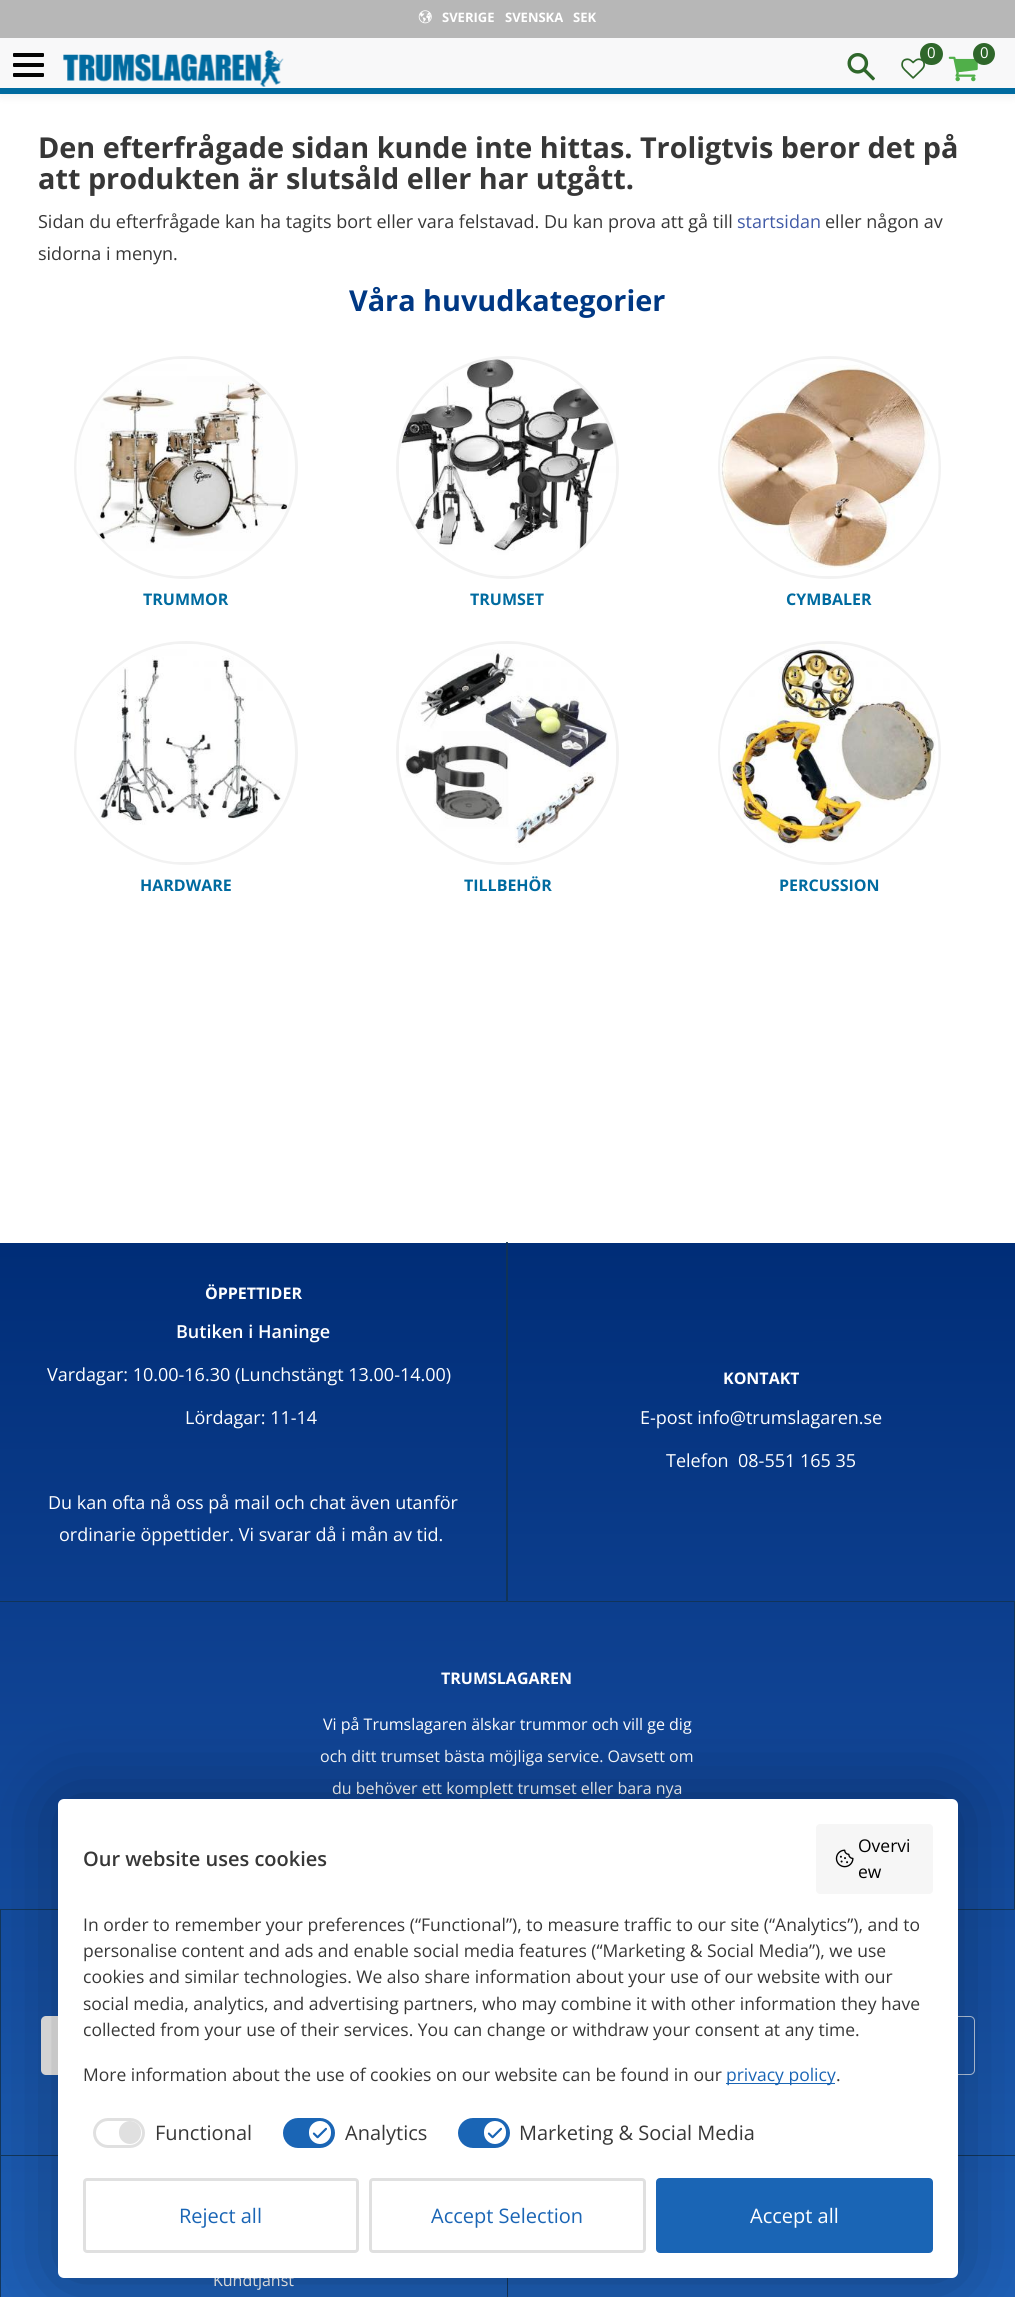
#include <cairo.h>
#include <math.h>
#include <stddef.h>

typedef struct { double x, y; const char *s; } line_t;

static void ink(cairo_t *ctx, unsigned color) {
    cairo_set_source_rgb(ctx, (color >> 16) / 255.0, (color >> 8 & 255) / 255.0, (color & 255) / 255.0);
}

static void round_path(cairo_t *ctx, double x, double y, double w, double h, double r) {
    cairo_new_sub_path(ctx);
    cairo_arc(ctx, x + w - r, y + h - r, r, 0, M_PI / 2);
    cairo_arc(ctx, x + r, y + h - r, r, M_PI / 2, M_PI);
    cairo_arc(ctx, x + r, y + r, r, M_PI, 1.5 * M_PI);
    cairo_arc(ctx, x + w - r, y + r, r, 1.5 * M_PI, 2 * M_PI);
    cairo_close_path(ctx);
}

static void blur_box(cairo_t *ctx, double x, double y, double w, double h, double r, double blur, double alpha) {
    cairo_push_group_with_content(ctx, CAIRO_CONTENT_ALPHA);
    cairo_set_operator(ctx, CAIRO_OPERATOR_SOURCE);
    for (int i = 15; i >= -15 && fmin(w, h) + blur * i / 3 > 0; i -= 2) {
        double e = blur * i / 6;
        cairo_set_source_rgba(ctx, 0, 0, 0, alpha * erfc((i - 1) / 8.5) / 2);
        round_path(ctx, x - e, y - e, w + 2 * e, h + 2 * e, fmax(0, fmin(r + e + blur * .6, fmin(w, h) / 2 + e)));
        cairo_fill(ctx);
    }
    cairo_pattern_t *soft = cairo_pop_group(ctx);
    cairo_mask(ctx, soft);
    cairo_pattern_destroy(soft);
}

static void paste(cairo_t *ctx, const char *path, double x, double y, double w, double h) {
    cairo_surface_t *image = cairo_image_surface_create_from_png(path);
    cairo_save(ctx);
    cairo_set_source_surface(ctx, image, x, y);
    cairo_rectangle(ctx, x, y, w, h);
    cairo_fill(ctx);
    cairo_restore(ctx);
    cairo_surface_destroy(image);
}

int main(void) {
    cairo_surface_t *surface = cairo_image_surface_create(CAIRO_FORMAT_RGB24, 1015, 2297);
    cairo_t *ctx = cairo_create(surface);
    cairo_font_options_t *options = cairo_font_options_create();
    cairo_font_options_set_hint_metrics(options, CAIRO_HINT_METRICS_OFF);
    cairo_font_options_set_hint_style(options, CAIRO_HINT_STYLE_NONE);
    cairo_set_font_options(ctx, options);
    cairo_set_miter_limit(ctx, 4);
    cairo_pattern_t *gradient;
    ink(ctx, 0xFFFFFF);
    cairo_paint(ctx);
    ink(ctx, 0x000000);
    blur_box(ctx, 0, 3, 1015, 93, 0, 5, 0.07);
    ink(ctx, 0xB7B7B7);
    cairo_rectangle(ctx, 0, 0, 1015, 38);
    cairo_fill(ctx);
    paste(ctx, "media/1.png", 418, 10, 14, 14);
    cairo_select_font_face(ctx, "Open Sans", CAIRO_FONT_SLANT_NORMAL, CAIRO_FONT_WEIGHT_BOLD);
    cairo_set_font_size(ctx, 13);
    ink(ctx, 0xFFFFFF);
    {
        static const line_t items[] = {
            {442, 22, "SVERIGE"},
            {505, 22, "SVENSKA"},
            {573, 22, "SEK"},
        };
        for (size_t i = 0; i < sizeof items / sizeof *items; i++) {
            cairo_move_to(ctx, items[i].x, items[i].y);
            cairo_show_text(ctx, items[i].s);
        }
    }
    ink(ctx, 0xF8F8F9);
    cairo_rectangle(ctx, 0, 38, 1015, 50);
    cairo_fill(ctx);
    paste(ctx, "media/2.png", 63, 50, 221, 37);
    paste(ctx, "media/3.png", 847, 53, 28, 28);
    paste(ctx, "media/4.png", 901, 58, 24, 21);
    ink(ctx, 0x2F672B);
    round_path(ctx, 920, 43, 23, 22, 11);
    cairo_fill(ctx);
    cairo_select_font_face(ctx, "Open Sans", CAIRO_FONT_SLANT_NORMAL, CAIRO_FONT_WEIGHT_NORMAL);
    cairo_set_font_size(ctx, 15);
    ink(ctx, 0xFFFFFF);
    cairo_move_to(ctx, 927, 58);
    cairo_show_text(ctx, "0");
    paste(ctx, "media/5.png", 948, 56, 30, 26);
    ink(ctx, 0x2F672B);
    cairo_arc(ctx, 984, 54, 11, 0, 2 * M_PI);
    cairo_fill(ctx);
    ink(ctx, 0xFFFFFF);
    cairo_move_to(ctx, 980, 58);
    cairo_show_text(ctx, "0");
    ink(ctx, 0x006BA0);
    cairo_rectangle(ctx, 0, 88, 1015, 6);
    cairo_fill(ctx);
    ink(ctx, 0x040404);
    round_path(ctx, 13, 63, 31, 4, 1);
    cairo_fill(ctx);
    round_path(ctx, 13, 53, 31, 4, 1);
    cairo_fill(ctx);
    round_path(ctx, 13, 73, 31, 4, 1);
    cairo_fill(ctx);
    cairo_select_font_face(ctx, "Open Sans", CAIRO_FONT_SLANT_NORMAL, CAIRO_FONT_WEIGHT_BOLD);
    cairo_set_font_size(ctx, 28.8);
    ink(ctx, 0x373737);
    cairo_move_to(ctx, 38, 158);
    cairo_show_text(ctx, "Den efterfrågade sidan kunde inte hittas. Troligtvis beror det på");
    cairo_move_to(ctx, 38, 189);
    cairo_show_text(ctx, "att produkten är slutsåld eller har utgått.");
    cairo_select_font_face(ctx, "Open Sans", CAIRO_FONT_SLANT_NORMAL, CAIRO_FONT_WEIGHT_NORMAL);
    cairo_set_font_size(ctx, 18);
    cairo_move_to(ctx, 38, 228);
    cairo_show_text(ctx, "Sidan du efterfrågade kan ha tagits bort eller vara felstavad. Du kan prova att gå till");
    ink(ctx, 0x405AA7);
    cairo_move_to(ctx, 737, 228);
    cairo_show_text(ctx, "startsidan");
    ink(ctx, 0x373737);
    cairo_move_to(ctx, 825, 228);
    cairo_show_text(ctx, "eller någon av");
    cairo_move_to(ctx, 38, 260);
    cairo_show_text(ctx, "sidorna i menyn.");
    cairo_select_font_face(ctx, "Open Sans", CAIRO_FONT_SLANT_NORMAL, CAIRO_FONT_WEIGHT_BOLD);
    cairo_set_font_size(ctx, 28.8);
    ink(ctx, 0x003884);
    cairo_move_to(ctx, 349, 311);
    cairo_show_text(ctx, "Våra huvudkategorier");
    round_path(ctx, 75.5, 357.5, 221, 220, 110);
    ink(ctx, 0xF2F2F2);
    cairo_set_line_width(ctx, 3);
    cairo_stroke(ctx);
    paste(ctx, "media/6.png", 76, 359, 212, 217);
    cairo_set_font_size(ctx, 16);
    ink(ctx, 0x006BA0);
    cairo_move_to(ctx, 143, 605);
    cairo_show_text(ctx, "TRUMMOR");
    cairo_new_path(ctx);
    cairo_arc(ctx, 507.5, 467.5, 110, 0, 2 * M_PI);
    ink(ctx, 0xF2F2F2);
    cairo_stroke(ctx);
    paste(ctx, "media/7.png", 399, 359, 217, 217);
    ink(ctx, 0x006BA0);
    cairo_move_to(ctx, 470, 605);
    cairo_show_text(ctx, "TRUMSET");
    cairo_new_path(ctx);
    cairo_arc(ctx, 829.5, 467.5, 110, 0, 2 * M_PI);
    ink(ctx, 0xF2F2F2);
    cairo_stroke(ctx);
    paste(ctx, "media/8.png", 720, 359, 219, 217);
    ink(ctx, 0x006BA0);
    cairo_move_to(ctx, 786, 605);
    cairo_show_text(ctx, "CYMBALER");
    cairo_new_path(ctx);
    cairo_arc(ctx, 186, 753, 110.5, 0, 2 * M_PI);
    ink(ctx, 0xF2F2F2);
    cairo_stroke(ctx);
    paste(ctx, "media/9.png", 76, 644, 211, 218);
    ink(ctx, 0x006BA0);
    cairo_move_to(ctx, 140, 891);
    cairo_show_text(ctx, "HARDWARE");
    round_path(ctx, 397.5, 642.5, 220, 221, 110);
    ink(ctx, 0xF2F2F2);
    cairo_stroke(ctx);
    paste(ctx, "media/10.png", 399, 644, 217, 218);
    ink(ctx, 0x006BA0);
    cairo_move_to(ctx, 464, 891);
    cairo_show_text(ctx, "TILLBEHÖR");
    round_path(ctx, 719.5, 642.5, 220, 221, 110);
    ink(ctx, 0xF2F2F2);
    cairo_stroke(ctx);
    paste(ctx, "media/11.png", 720, 644, 219, 218);
    ink(ctx, 0x006BA0);
    cairo_move_to(ctx, 779, 891);
    cairo_show_text(ctx, "PERCUSSION");
    gradient = cairo_pattern_create_linear(507, 1243, 508, 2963);
    cairo_pattern_add_color_stop_rgba(gradient, 0, 0, 0.176, 0.467, 1);
    cairo_pattern_add_color_stop_rgba(gradient, 0.25, 0.055, 0.255, 0.569, 1);
    cairo_pattern_add_color_stop_rgba(gradient, 0.5, 0.098, 0.337, 0.671, 1);
    cairo_pattern_add_color_stop_rgba(gradient, 0.75, 0.137, 0.424, 0.776, 1);
    cairo_pattern_add_color_stop_rgba(gradient, 1, 0, 0.42, 0.627, 1);
    cairo_set_source(ctx, gradient);
    cairo_pattern_destroy(gradient);
    cairo_rectangle(ctx, 0, 1243, 1015, 1054);
    cairo_fill(ctx);
    gradient = cairo_pattern_create_linear(507, 1243, 508, 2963);
    cairo_pattern_add_color_stop_rgba(gradient, 0, 0.063, 0.196, 0.345, 1);
    cairo_pattern_add_color_stop_rgba(gradient, 0.25, 0.071, 0.204, 0.353, 1);
    cairo_pattern_add_color_stop_rgba(gradient, 0.5, 0.075, 0.216, 0.365, 1);
    cairo_pattern_add_color_stop_rgba(gradient, 0.75, 0.078, 0.224, 0.373, 1);
    cairo_pattern_add_color_stop_rgba(gradient, 1, 0.063, 0.224, 0.361, 1);
    cairo_set_source(ctx, gradient);
    cairo_pattern_destroy(gradient);
    cairo_rectangle(ctx, 0, 1910, 1, 245);
    cairo_fill(ctx);
    cairo_set_source_rgba(ctx, 0.071, 0.2, 0.329, 0.9);
    cairo_new_path(ctx);
    cairo_move_to(ctx, 508, 1242);
    cairo_line_to(ctx, 508, 1602);
    cairo_line_to(ctx, 506, 1601);
    cairo_line_to(ctx, 506, 1242);
    cairo_close_path(ctx);
    cairo_fill(ctx);
    cairo_new_path(ctx);
    cairo_move_to(ctx, 508, 1602);
    cairo_line_to(ctx, 0, 1602);
    cairo_line_to(ctx, 0, 1601);
    cairo_line_to(ctx, 506, 1601);
    cairo_close_path(ctx);
    cairo_fill(ctx);
    ink(ctx, 0xFFFFFF);
    cairo_move_to(ctx, 205, 1299);
    cairo_show_text(ctx, "ÖPPETTIDER");
    cairo_select_font_face(ctx, "Open Sans SemiBold", CAIRO_FONT_SLANT_NORMAL, CAIRO_FONT_WEIGHT_NORMAL);
    cairo_set_font_size(ctx, 18);
    cairo_move_to(ctx, 176, 1338);
    cairo_show_text(ctx, "Butiken i Haninge");
    cairo_select_font_face(ctx, "Open Sans", CAIRO_FONT_SLANT_NORMAL, CAIRO_FONT_WEIGHT_NORMAL);
    {
        static const line_t items[] = {
            {47, 1381, "Vardagar: 10.00-16.30 (Lunchstängt 13.00-14.00)"},
            {185, 1424, "Lördagar: 11-14"},
            {48, 1509, "Du kan ofta nå oss på mail och chat även utanför"},
            {59, 1541, "ordinarie öppettider. Vi svarar då i mån av tid."},
        };
        for (size_t i = 0; i < sizeof items / sizeof *items; i++) {
            cairo_move_to(ctx, items[i].x, items[i].y);
            cairo_show_text(ctx, items[i].s);
        }
    }
    ink(ctx, 0x11345A);
    cairo_rectangle(ctx, 508, 1601, 507, 1);
    cairo_fill(ctx);
    cairo_select_font_face(ctx, "Open Sans", CAIRO_FONT_SLANT_NORMAL, CAIRO_FONT_WEIGHT_BOLD);
    cairo_set_font_size(ctx, 16);
    ink(ctx, 0xFFFFFF);
    cairo_move_to(ctx, 723, 1384);
    cairo_show_text(ctx, "KONTAKT");
    cairo_select_font_face(ctx, "Open Sans", CAIRO_FONT_SLANT_NORMAL, CAIRO_FONT_WEIGHT_NORMAL);
    cairo_set_font_size(ctx, 18);
    {
        static const line_t items[] = {
            {640, 1424, "E-post info@trumslagaren.se"},
            {666, 1467, "Telefon"},
            {738, 1467, "08-551 165 35"},
        };
        for (size_t i = 0; i < sizeof items / sizeof *items; i++) {
            cairo_move_to(ctx, items[i].x, items[i].y);
            cairo_show_text(ctx, items[i].s);
        }
    }
    cairo_set_source_rgba(ctx, 0.071, 0.2, 0.329, 0.9);
    cairo_new_path(ctx);
    cairo_move_to(ctx, 1015, 1602);
    cairo_line_to(ctx, 1015, 1910);
    cairo_line_to(ctx, 1014, 1909);
    cairo_line_to(ctx, 1014, 1602);
    cairo_close_path(ctx);
    cairo_fill(ctx);
    cairo_new_path(ctx);
    cairo_move_to(ctx, 1015, 1910);
    cairo_line_to(ctx, 0, 1910);
    cairo_line_to(ctx, 0, 1909);
    cairo_line_to(ctx, 1014, 1909);
    cairo_close_path(ctx);
    cairo_fill(ctx);
    cairo_select_font_face(ctx, "Open Sans", CAIRO_FONT_SLANT_NORMAL, CAIRO_FONT_WEIGHT_BOLD);
    cairo_set_font_size(ctx, 16);
    ink(ctx, 0xFFFFFF);
    cairo_move_to(ctx, 441, 1684);
    cairo_show_text(ctx, "TRUMSLAGAREN");
    cairo_select_font_face(ctx, "Open Sans", CAIRO_FONT_SLANT_NORMAL, CAIRO_FONT_WEIGHT_NORMAL);
    {
        static const line_t items[] = {
            {323, 1730, "Vi på Trumslagaren älskar trummor och vill ge dig"},
            {320, 1762, "och ditt trumset bästa möjliga service. Oavsett om"},
            {332, 1794, "du behöver ett komplett trumset eller bara nya"},
        };
        for (size_t i = 0; i < sizeof items / sizeof *items; i++) {
            cairo_move_to(ctx, items[i].x, items[i].y);
            cairo_show_text(ctx, items[i].s);
        }
    }
    ink(ctx, 0xF0F0F0);
    round_path(ctx, 41, 2016, 868, 59, 5);
    cairo_fill(ctx);
    round_path(ctx, 915.5, 2016.5, 59, 58, 4.5);
    cairo_set_source_rgba(ctx, 1, 1, 1, 0.7);
    cairo_set_line_width(ctx, 1);
    cairo_stroke(ctx);
    ink(ctx, 0x13375D);
    cairo_rectangle(ctx, 958, 2155, 57, 1);
    cairo_fill(ctx);
    cairo_rectangle(ctx, 0.5, 2155.5, 507, 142);
    cairo_set_source_rgba(ctx, 0.071, 0.2, 0.329, 0.9);
    cairo_stroke(ctx);
    ink(ctx, 0xFFFFFF);
    cairo_move_to(ctx, 213, 2286);
    cairo_show_text(ctx, "Kundtjänst");
    ink(ctx, 0x000000);
    blur_box(ctx, 58, 1799, 900, 479, 6, 40, 0.33);
    ink(ctx, 0xFFFFFF);
    round_path(ctx, 58, 1799, 900, 479, 6);
    cairo_fill(ctx);
    cairo_select_font_face(ctx, "Open Sans SemiBold", CAIRO_FONT_SLANT_NORMAL, CAIRO_FONT_WEIGHT_NORMAL);
    cairo_set_font_size(ctx, 20);
    ink(ctx, 0x373737);
    cairo_move_to(ctx, 83, 1866);
    cairo_show_text(ctx, "Our website uses cookies");
    ink(ctx, 0xF6F6F6);
    round_path(ctx, 816, 1824, 117, 70, 4);
    cairo_fill(ctx);
    cairo_select_font_face(ctx, "Open Sans", CAIRO_FONT_SLANT_NORMAL, CAIRO_FONT_WEIGHT_NORMAL);
    cairo_set_font_size(ctx, 17.5);
    ink(ctx, 0x000000);
    cairo_move_to(ctx, 858, 1852);
    cairo_show_text(ctx, "Overvi");
    paste(ctx, "media/12.png", 835, 1849, 19, 19);
    cairo_move_to(ctx, 858, 1878);
    cairo_show_text(ctx, "ew");
    ink(ctx, 0x373737);
    {
        static const line_t items[] = {
            {83, 1931, "In order to remember your preferences (“Functional”), to measure traffic to our site (“Analytics”), and to"},
            {83, 1957, "personalise content and ads and enable social media features (“Marketing & Social Media”), we use"},
            {83, 1983, "cookies and similar technologies. We also share information about your use of our website with our"},
            {83, 2010, "social media, analytics, and advertising partners, who may combine it with other information they have"},
            {83, 2036, "collected from your use of their services. You can change or withdraw your consent at any time."},
            {83, 2081, "More information about the use of cookies on our website can be found in our"},
        };
        for (size_t i = 0; i < sizeof items / sizeof *items; i++) {
            cairo_move_to(ctx, items[i].x, items[i].y);
            cairo_show_text(ctx, items[i].s);
        }
    }
    ink(ctx, 0x1A65B5);
    cairo_rectangle(ctx, 726, 2083, 109, 1);
    cairo_fill(ctx);
    cairo_move_to(ctx, 726, 2081);
    cairo_show_text(ctx, "privacy policy");
    ink(ctx, 0x373737);
    cairo_move_to(ctx, 836, 2081);
    cairo_show_text(ctx, ".");
    round_path(ctx, 94.5, 2119.5, 49, 27, 13.5);
    ink(ctx, 0xE0E0E0);
    cairo_set_line_width(ctx, 3);
    cairo_stroke(ctx);
    round_path(ctx, 119, 2121, 22, 23, 11);
    cairo_fill(ctx);
    cairo_set_font_size(ctx, 20);
    ink(ctx, 0x373737);
    cairo_move_to(ctx, 155, 2140);
    cairo_show_text(ctx, "Functional");
    ink(ctx, 0x1A65B5);
    round_path(ctx, 284.5, 2119.5, 49, 27, 13.5);
    cairo_fill_preserve(ctx);
    cairo_stroke(ctx);
    ink(ctx, 0xFFFFFF);
    round_path(ctx, 309, 2121, 22, 23, 11);
    cairo_fill(ctx);
    paste(ctx, "media/13.png", 312, 2127, 15, 12);
    ink(ctx, 0x373737);
    cairo_move_to(ctx, 345, 2140);
    cairo_show_text(ctx, "Analytics");
    ink(ctx, 0x1A65B5);
    round_path(ctx, 459.5, 2119.5, 49, 27, 13.5);
    cairo_fill_preserve(ctx);
    cairo_stroke(ctx);
    ink(ctx, 0xFFFFFF);
    round_path(ctx, 484, 2121, 22, 23, 11);
    cairo_fill(ctx);
    paste(ctx, "media/13.png", 487, 2127, 15, 12);
    ink(ctx, 0x373737);
    cairo_move_to(ctx, 519, 2140);
    cairo_show_text(ctx, "Marketing & Social Media");
    round_path(ctx, 84.5, 2179.5, 273, 72, 2.5);
    ink(ctx, 0xE0E0E0);
    cairo_stroke(ctx);
    ink(ctx, 0x1A65B5);
    cairo_move_to(ctx, 179, 2223);
    cairo_show_text(ctx, "Reject all");
    round_path(ctx, 370.5, 2179.5, 274, 72, 2.5);
    ink(ctx, 0xE0E0E0);
    cairo_stroke(ctx);
    ink(ctx, 0x1A65B5);
    cairo_move_to(ctx, 431, 2223);
    cairo_show_text(ctx, "Accept Selection");
    round_path(ctx, 657.5, 2179.5, 274, 72, 2.5);
    cairo_fill_preserve(ctx);
    cairo_stroke(ctx);
    ink(ctx, 0xFFFFFF);
    cairo_move_to(ctx, 750, 2223);
    cairo_show_text(ctx, "Accept all");
    cairo_surface_write_to_png(surface, "image.png");
    cairo_font_options_destroy(options);
    cairo_destroy(ctx);
    cairo_surface_destroy(surface);
    return 0;
}
